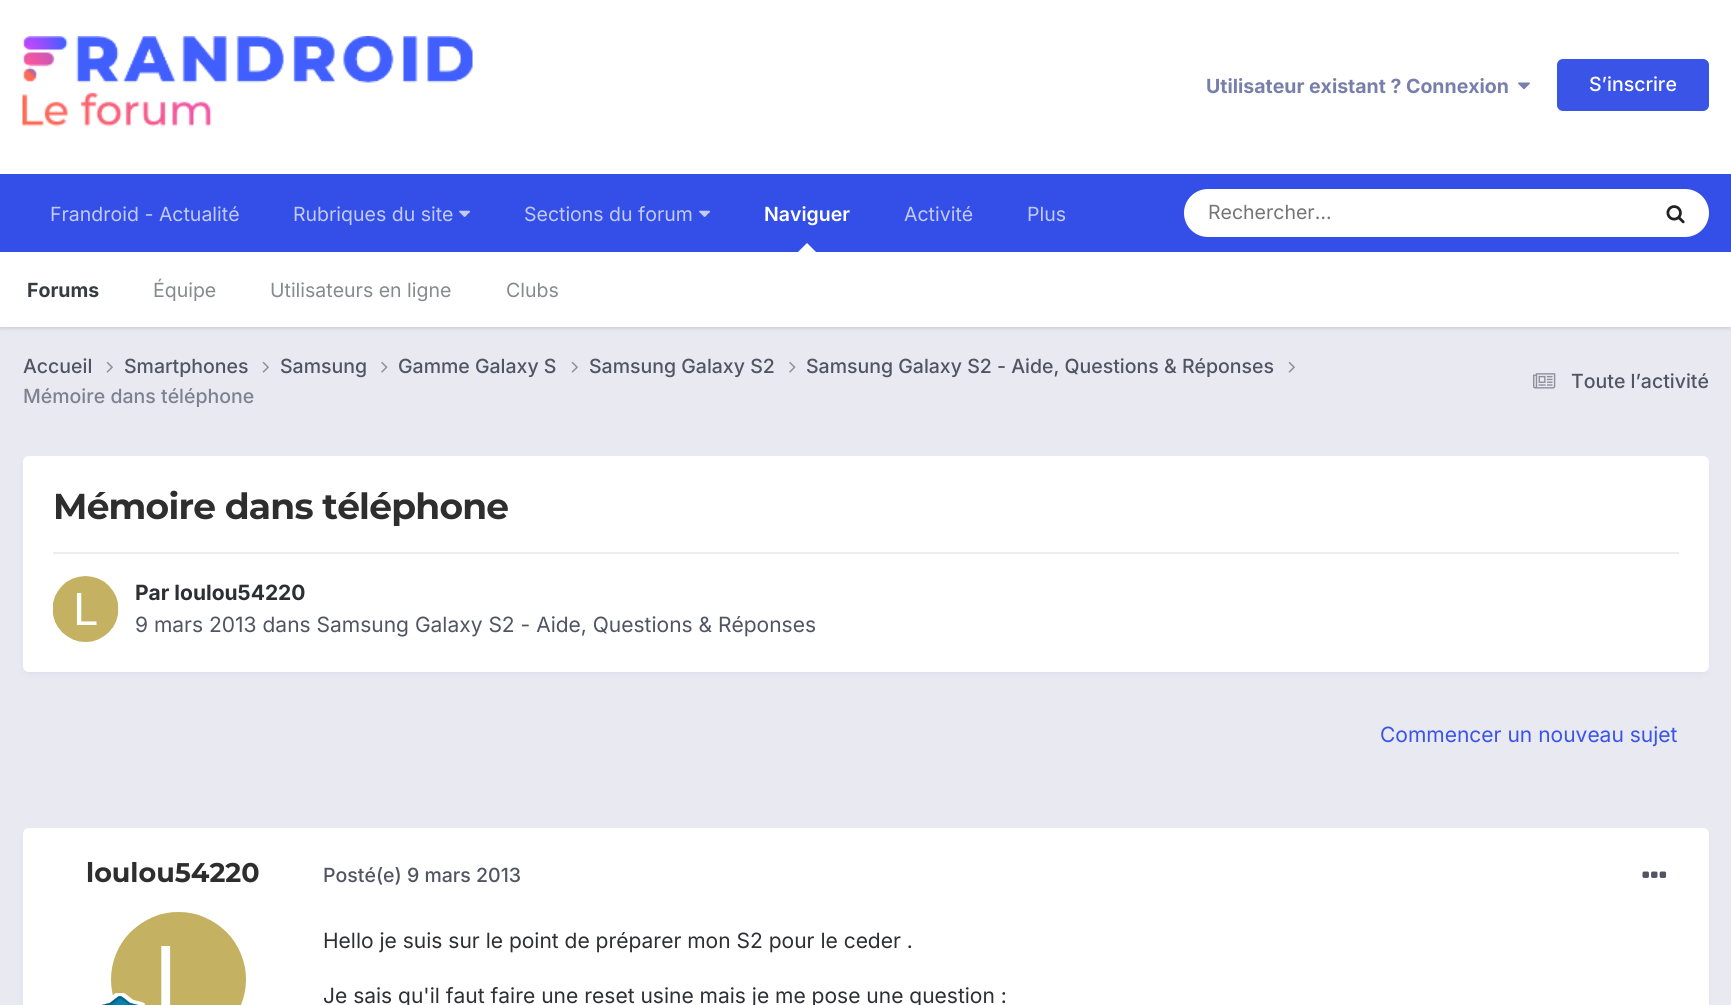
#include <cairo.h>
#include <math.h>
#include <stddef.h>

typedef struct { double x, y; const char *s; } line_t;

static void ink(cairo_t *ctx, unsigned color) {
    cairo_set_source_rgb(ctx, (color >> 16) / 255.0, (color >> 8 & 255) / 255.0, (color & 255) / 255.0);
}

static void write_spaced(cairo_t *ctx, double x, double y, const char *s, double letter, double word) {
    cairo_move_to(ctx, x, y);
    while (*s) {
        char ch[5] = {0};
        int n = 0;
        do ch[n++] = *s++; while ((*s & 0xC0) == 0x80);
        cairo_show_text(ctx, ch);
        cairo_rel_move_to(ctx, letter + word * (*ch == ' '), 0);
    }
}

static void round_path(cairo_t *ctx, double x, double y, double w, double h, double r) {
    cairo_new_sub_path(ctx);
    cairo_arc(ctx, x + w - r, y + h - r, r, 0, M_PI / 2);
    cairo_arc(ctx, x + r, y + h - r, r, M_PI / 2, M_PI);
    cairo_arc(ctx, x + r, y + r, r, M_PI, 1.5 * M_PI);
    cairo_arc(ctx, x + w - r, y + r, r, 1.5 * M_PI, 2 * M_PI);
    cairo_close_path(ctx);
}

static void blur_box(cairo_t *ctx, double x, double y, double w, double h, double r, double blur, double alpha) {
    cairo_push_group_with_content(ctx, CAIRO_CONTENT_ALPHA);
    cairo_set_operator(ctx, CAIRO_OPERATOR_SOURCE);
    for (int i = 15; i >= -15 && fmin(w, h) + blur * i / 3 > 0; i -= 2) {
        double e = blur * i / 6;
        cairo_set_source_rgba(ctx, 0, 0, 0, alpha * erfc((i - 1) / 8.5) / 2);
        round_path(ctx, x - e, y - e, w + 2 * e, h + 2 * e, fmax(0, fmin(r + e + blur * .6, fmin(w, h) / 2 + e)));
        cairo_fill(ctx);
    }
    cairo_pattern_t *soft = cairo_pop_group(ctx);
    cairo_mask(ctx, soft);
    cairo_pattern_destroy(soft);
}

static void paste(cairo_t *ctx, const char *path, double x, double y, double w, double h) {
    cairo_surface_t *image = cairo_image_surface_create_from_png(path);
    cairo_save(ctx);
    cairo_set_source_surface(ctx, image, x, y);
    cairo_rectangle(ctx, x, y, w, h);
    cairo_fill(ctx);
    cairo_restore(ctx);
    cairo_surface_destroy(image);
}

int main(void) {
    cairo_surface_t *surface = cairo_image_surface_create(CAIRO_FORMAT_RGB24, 1731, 1005);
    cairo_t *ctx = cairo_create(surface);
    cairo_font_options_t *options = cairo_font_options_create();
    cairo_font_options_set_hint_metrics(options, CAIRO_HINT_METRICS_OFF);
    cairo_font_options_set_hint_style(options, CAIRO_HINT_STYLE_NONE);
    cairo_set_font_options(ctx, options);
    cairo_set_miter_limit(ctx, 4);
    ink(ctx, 0xE8E9F1);
    cairo_paint(ctx);
    ink(ctx, 0xFFFFFF);
    cairo_rectangle(ctx, 0, 0, 1731, 174);
    cairo_fill(ctx);
    paste(ctx, "media/1.png", 22, 36, 451, 91);
    cairo_select_font_face(ctx, "Inter", CAIRO_FONT_SLANT_NORMAL, CAIRO_FONT_WEIGHT_BOLD);
    cairo_set_font_size(ctx, 19.5);
    ink(ctx, 0x787FAA);
    cairo_move_to(ctx, 1206, 93);
    cairo_show_text(ctx, "Utilisateur existant ? Connexion");
    paste(ctx, "media/2.png", 1518, 82, 12, 8);
    ink(ctx, 0x3A54E8);
    round_path(ctx, 1557, 59, 152, 52, 6);
    cairo_fill(ctx);
    cairo_select_font_face(ctx, "Inter Medium", CAIRO_FONT_SLANT_NORMAL, CAIRO_FONT_WEIGHT_NORMAL);
    ink(ctx, 0xFFFFFF);
    cairo_move_to(ctx, 1589, 91);
    cairo_show_text(ctx, "S’inscrire");
    ink(ctx, 0x344FE8);
    cairo_rectangle(ctx, 0, 174, 1731, 78);
    cairo_fill(ctx);
    cairo_select_font_face(ctx, "Inter SemiBold", CAIRO_FONT_SLANT_NORMAL, CAIRO_FONT_WEIGHT_NORMAL);
    ink(ctx, 0xFFFFFF);
    cairo_move_to(ctx, 764, 221);
    cairo_show_text(ctx, "Naviguer");
    ink(ctx, 0x000000);
    blur_box(ctx, 0, 254, 1731, 75, 0, 1.5, 0.1);
    ink(ctx, 0xFFFFFF);
    cairo_new_path(ctx);
    cairo_move_to(ctx, 816, 252);
    cairo_line_to(ctx, 798, 252);
    cairo_line_to(ctx, 807, 243);
    cairo_close_path(ctx);
    cairo_fill(ctx);
    cairo_rectangle(ctx, 0, 252, 1731, 75);
    cairo_fill(ctx);
    cairo_select_font_face(ctx, "Inter", CAIRO_FONT_SLANT_NORMAL, CAIRO_FONT_WEIGHT_BOLD);
    ink(ctx, 0x353C41);
    cairo_move_to(ctx, 27, 297);
    cairo_show_text(ctx, "Forums");
    cairo_select_font_face(ctx, "Inter", CAIRO_FONT_SLANT_NORMAL, CAIRO_FONT_WEIGHT_NORMAL);
    ink(ctx, 0x868A8D);
    {
        static const line_t items[] = {
            {153, 297, "Équipe"},
            {270, 297, "Utilisateurs en ligne"},
            {506, 297, "Clubs"},
        };
        for (size_t i = 0; i < sizeof items / sizeof *items; i++) {
            cairo_move_to(ctx, items[i].x, items[i].y);
            cairo_show_text(ctx, items[i].s);
        }
    }
    ink(ctx, 0xC2CAF8);
    cairo_move_to(ctx, 50, 221);
    cairo_show_text(ctx, "Frandroid - Actualité");
    cairo_move_to(ctx, 293, 221);
    cairo_show_text(ctx, "Rubriques du site");
    paste(ctx, "media/3.png", 459, 210, 12, 7);
    cairo_move_to(ctx, 524, 221);
    cairo_show_text(ctx, "Sections du forum");
    paste(ctx, "media/3.png", 699, 210, 12, 7);
    cairo_move_to(ctx, 904, 221);
    cairo_show_text(ctx, "Activité");
    cairo_move_to(ctx, 1027, 221);
    cairo_show_text(ctx, "Plus");
    ink(ctx, 0xFFFFFF);
    round_path(ctx, 1184, 189, 525, 48, 24);
    cairo_fill(ctx);
    ink(ctx, 0x757575);
    cairo_move_to(ctx, 1208, 219);
    cairo_show_text(ctx, "Rechercher…");
    paste(ctx, "media/4.png", 1666, 205, 19, 19);
    cairo_select_font_face(ctx, "Inter Medium", CAIRO_FONT_SLANT_NORMAL, CAIRO_FONT_WEIGHT_NORMAL);
    ink(ctx, 0x515463);
    cairo_move_to(ctx, 23, 373);
    cairo_show_text(ctx, "Accueil");
    paste(ctx, "media/5.png", 106, 361, 7, 12);
    cairo_move_to(ctx, 124, 373);
    cairo_show_text(ctx, "Smartphones");
    paste(ctx, "media/5.png", 262, 361, 7, 12);
    cairo_move_to(ctx, 280, 373);
    cairo_show_text(ctx, "Samsung");
    paste(ctx, "media/6.png", 381, 361, 7, 12);
    cairo_move_to(ctx, 398, 373);
    cairo_show_text(ctx, "Gamme Galaxy S");
    paste(ctx, "media/5.png", 571, 361, 7, 12);
    cairo_move_to(ctx, 589, 373);
    cairo_show_text(ctx, "Samsung Galaxy S2");
    paste(ctx, "media/6.png", 789, 361, 7, 12);
    cairo_move_to(ctx, 806, 373);
    cairo_show_text(ctx, "Samsung Galaxy S2 - Aide, Questions & Réponses");
    paste(ctx, "media/5.png", 1288, 361, 7, 12);
    ink(ctx, 0x7E818E);
    cairo_move_to(ctx, 23, 403);
    cairo_show_text(ctx, "Mémoire dans téléphone");
    paste(ctx, "media/7.png", 1533, 373, 23, 16);
    ink(ctx, 0x515463);
    cairo_move_to(ctx, 1571, 388);
    cairo_show_text(ctx, "Toute l’activité");
    ink(ctx, 0x787FAA);
    blur_box(ctx, 24, 461, 1683, 213, 5, 3, 0.1);
    ink(ctx, 0xFFFFFF);
    round_path(ctx, 23, 456, 1686, 216, 6);
    cairo_fill(ctx);
    cairo_select_font_face(ctx, "Montserrat", CAIRO_FONT_SLANT_NORMAL, CAIRO_FONT_WEIGHT_BOLD);
    cairo_set_font_size(ctx, 36);
    ink(ctx, 0x2E2E2E);
    write_spaced(ctx, 53, 519, "Mémoire dans téléphone", -0.75, 0);
    ink(ctx, 0xEEEEEF);
    cairo_rectangle(ctx, 53, 552, 1626, 2);
    cairo_fill(ctx);
    paste(ctx, "media/8.png", 53, 576, 66, 66);
    cairo_select_font_face(ctx, "Inter", CAIRO_FONT_SLANT_NORMAL, CAIRO_FONT_WEIGHT_BOLD);
    cairo_set_font_size(ctx, 21);
    ink(ctx, 0x2E2F34);
    cairo_move_to(ctx, 135, 600);
    cairo_show_text(ctx, "Par loulou54220");
    cairo_select_font_face(ctx, "Inter", CAIRO_FONT_SLANT_NORMAL, CAIRO_FONT_WEIGHT_NORMAL);
    ink(ctx, 0x515463);
    cairo_move_to(ctx, 135, 632);
    cairo_show_text(ctx, "9 mars 2013 dans Samsung Galaxy S2 - Aide, Questions & Réponses");
    ink(ctx, 0x3A54E8);
    cairo_move_to(ctx, 1380, 742);
    cairo_show_text(ctx, "Commencer un nouveau sujet");
    ink(ctx, 0x787FAA);
    blur_box(ctx, 24, 833, 1683, 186, 5, 3, 0.1);
    ink(ctx, 0xFFFFFF);
    round_path(ctx, 23, 828, 1686, 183, 6);
    cairo_fill(ctx);
    cairo_select_font_face(ctx, "Montserrat", CAIRO_FONT_SLANT_NORMAL, CAIRO_FONT_WEIGHT_BOLD);
    cairo_set_font_size(ctx, 27);
    ink(ctx, 0x2E2E2E);
    cairo_move_to(ctx, 86, 882);
    cairo_show_text(ctx, "loulou54220");
    paste(ctx, "media/9.png", 111, 912, 135, 93);
    paste(ctx, "media/10.png", 101, 993, 45, 12);
    cairo_select_font_face(ctx, "Inter Medium", CAIRO_FONT_SLANT_NORMAL, CAIRO_FONT_WEIGHT_NORMAL);
    cairo_set_font_size(ctx, 19.5);
    ink(ctx, 0x515463);
    cairo_move_to(ctx, 323, 882);
    cairo_show_text(ctx, "Posté(e) 9 mars 2013");
    paste(ctx, "media/11.png", 1642, 871, 25, 7);
    cairo_select_font_face(ctx, "Inter", CAIRO_FONT_SLANT_NORMAL, CAIRO_FONT_WEIGHT_NORMAL);
    cairo_set_font_size(ctx, 21);
    ink(ctx, 0x2E2F34);
    cairo_move_to(ctx, 323, 948);
    cairo_show_text(ctx, "Hello je suis sur le point de préparer mon S2 pour le ceder .");
    cairo_move_to(ctx, 323, 1003);
    cairo_show_text(ctx, "Je sais qu'il faut faire une reset usine mais je me pose une question :");
    cairo_surface_write_to_png(surface, "image.png");
    cairo_font_options_destroy(options);
    cairo_destroy(ctx);
    cairo_surface_destroy(surface);
    return 0;
}
